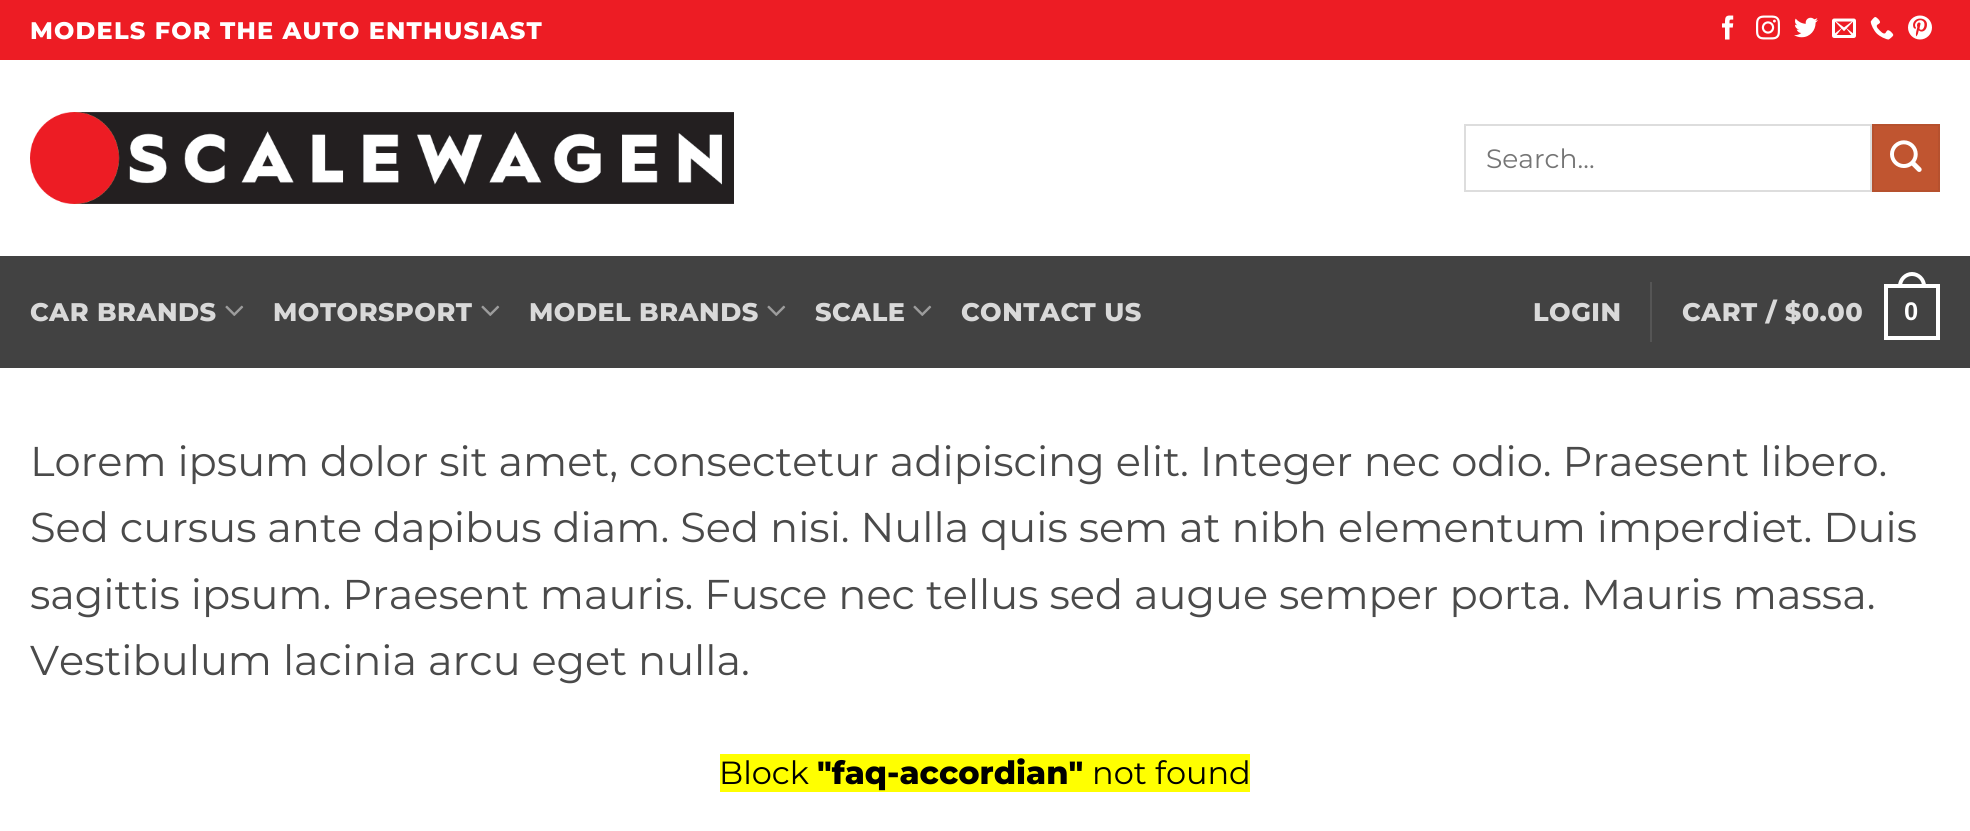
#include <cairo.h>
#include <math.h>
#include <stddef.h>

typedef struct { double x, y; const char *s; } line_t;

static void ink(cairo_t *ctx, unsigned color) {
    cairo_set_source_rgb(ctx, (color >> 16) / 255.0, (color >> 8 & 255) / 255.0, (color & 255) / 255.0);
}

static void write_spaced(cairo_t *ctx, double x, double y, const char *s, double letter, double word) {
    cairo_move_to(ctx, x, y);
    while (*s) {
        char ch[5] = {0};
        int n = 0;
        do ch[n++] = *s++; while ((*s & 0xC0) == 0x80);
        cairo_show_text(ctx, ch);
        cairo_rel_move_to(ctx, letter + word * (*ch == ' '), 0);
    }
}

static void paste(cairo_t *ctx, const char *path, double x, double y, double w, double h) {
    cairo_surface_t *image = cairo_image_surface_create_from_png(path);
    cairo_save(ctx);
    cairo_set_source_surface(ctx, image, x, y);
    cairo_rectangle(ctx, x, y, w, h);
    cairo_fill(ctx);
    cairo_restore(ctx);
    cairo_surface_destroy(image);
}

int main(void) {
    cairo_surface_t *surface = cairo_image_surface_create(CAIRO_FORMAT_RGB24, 1970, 831);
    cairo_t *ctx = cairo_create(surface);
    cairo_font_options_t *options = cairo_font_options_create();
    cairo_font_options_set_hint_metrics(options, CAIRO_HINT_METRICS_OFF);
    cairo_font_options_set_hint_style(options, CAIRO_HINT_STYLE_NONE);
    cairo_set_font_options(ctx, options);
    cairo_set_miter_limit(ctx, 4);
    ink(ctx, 0xFFFFFF);
    cairo_paint(ctx);
    ink(ctx, 0xED1C24);
    cairo_rectangle(ctx, 0, 0, 1970, 60);
    cairo_fill(ctx);
    cairo_select_font_face(ctx, "Montserrat ExtraBold", CAIRO_FONT_SLANT_NORMAL, CAIRO_FONT_WEIGHT_NORMAL);
    cairo_set_font_size(ctx, 24);
    ink(ctx, 0xFFFFFF);
    write_spaced(ctx, 30, 39, "MODELS FOR THE AUTO ENTHUSIAST", 1.2, 0);
    paste(ctx, "media/1.png", 1722, 15, 12, 25);
    paste(ctx, "media/2.png", 1756, 15, 24, 25);
    paste(ctx, "media/3.png", 1794, 17, 24, 21);
    paste(ctx, "media/4.png", 1832, 18, 24, 20);
    paste(ctx, "media/5.png", 1870, 17, 24, 23);
    paste(ctx, "media/6.png", 1908, 15, 24, 25);
    paste(ctx, "media/7.png", 30, 112, 704, 92);
    cairo_rectangle(ctx, 1465, 125, 406, 66);
    ink(ctx, 0xDDDDDD);
    cairo_stroke(ctx);
    cairo_select_font_face(ctx, "Montserrat", CAIRO_FONT_SLANT_NORMAL, CAIRO_FONT_WEIGHT_NORMAL);
    cairo_set_font_size(ctx, 26.5);
    ink(ctx, 0x757575);
    cairo_move_to(ctx, 1486, 168);
    cairo_show_text(ctx, "Search…");
    ink(ctx, 0xC05530);
    cairo_rectangle(ctx, 1873, 125, 66, 66);
    cairo_fill_preserve(ctx);
    ink(ctx, 0xB6512E);
    cairo_stroke(ctx);
    paste(ctx, "media/8.png", 1890, 140, 32, 32);
    ink(ctx, 0x424242);
    cairo_rectangle(ctx, 0, 256, 1970, 112);
    cairo_fill(ctx);
    cairo_select_font_face(ctx, "Montserrat ExtraBold", CAIRO_FONT_SLANT_NORMAL, CAIRO_FONT_WEIGHT_NORMAL);
    cairo_set_font_size(ctx, 25.5);
    ink(ctx, 0xD9D9D9);
    write_spaced(ctx, 30, 321, "CAR BRANDS", 0.5, 0);
    paste(ctx, "media/9.png", 225, 305, 19, 11);
    write_spaced(ctx, 273, 321, "MOTORSPORT", 0.5, 0);
    paste(ctx, "media/9.png", 481, 305, 19, 11);
    write_spaced(ctx, 529, 321, "MODEL BRANDS", 0.5, 0);
    paste(ctx, "media/9.png", 767, 305, 19, 11);
    write_spaced(ctx, 815, 321, "SCALE", 0.5, 0);
    paste(ctx, "media/9.png", 913, 305, 19, 11);
    write_spaced(ctx, 961, 321, "CONTACT US", 0.5, 0);
    write_spaced(ctx, 1533, 321, "LOGIN", 0.5, 0);
    ink(ctx, 0x555555);
    cairo_rectangle(ctx, 1650, 282, 2, 60);
    cairo_fill(ctx);
    ink(ctx, 0xD9D9D9);
    write_spaced(ctx, 1682, 321, "CART / $0.00", 0.5, 0);
    cairo_rectangle(ctx, 1886, 286, 52, 52);
    ink(ctx, 0xFFFFFF);
    cairo_set_line_width(ctx, 4);
    cairo_stroke(ctx);
    cairo_set_fill_rule(ctx, CAIRO_FILL_RULE_EVEN_ODD);
    cairo_new_path(ctx);
    cairo_move_to(ctx, 1912, 272);
    cairo_curve_to(ctx, 1919.5, 272, 1926, 278.5, 1926, 286);
    cairo_line_to(ctx, 1926, 288);
    cairo_line_to(ctx, 1898, 288);
    cairo_line_to(ctx, 1898, 286);
    cairo_curve_to(ctx, 1898, 278.5, 1904.5, 272, 1912, 272);
    cairo_close_path(ctx);
    cairo_move_to(ctx, 1912, 276);
    cairo_curve_to(ctx, 1917.5, 276, 1922, 280.5, 1922, 286);
    cairo_line_to(ctx, 1922, 288);
    cairo_line_to(ctx, 1902, 288);
    cairo_line_to(ctx, 1902, 286);
    cairo_curve_to(ctx, 1902, 280.5, 1906.5, 276, 1912, 276);
    cairo_close_path(ctx);
    cairo_fill(ctx);
    cairo_select_font_face(ctx, "Liberation Sans", CAIRO_FONT_SLANT_NORMAL, CAIRO_FONT_WEIGHT_BOLD);
    write_spaced(ctx, 1904, 320, "0", 0.5, 0);
    cairo_select_font_face(ctx, "Montserrat", CAIRO_FONT_SLANT_NORMAL, CAIRO_FONT_WEIGHT_NORMAL);
    cairo_set_font_size(ctx, 41.6);
    ink(ctx, 0x4A4A4A);
    {
        static const line_t items[] = {
            {30, 476, "Lorem ipsum dolor sit amet, consectetur adipiscing elit. Integer nec odio. Praesent libero."},
            {30, 542, "Sed cursus ante dapibus diam. Sed nisi. Nulla quis sem at nibh elementum imperdiet. Duis"},
            {30, 609, "sagittis ipsum. Praesent mauris. Fusce nec tellus sed augue semper porta. Mauris massa."},
            {30, 675, "Vestibulum lacinia arcu eget nulla."},
        };
        for (size_t i = 0; i < sizeof items / sizeof *items; i++) {
            cairo_move_to(ctx, items[i].x, items[i].y);
            cairo_show_text(ctx, items[i].s);
        }
    }
    ink(ctx, 0xFFFF00);
    cairo_rectangle(ctx, 720, 754, 530, 38);
    cairo_fill(ctx);
    cairo_set_font_size(ctx, 32);
    ink(ctx, 0x000000);
    cairo_move_to(ctx, 719, 784);
    cairo_show_text(ctx, "Block");
    cairo_select_font_face(ctx, "Montserrat ExtraBold", CAIRO_FONT_SLANT_NORMAL, CAIRO_FONT_WEIGHT_NORMAL);
    cairo_move_to(ctx, 817, 784);
    cairo_show_text(ctx, "\"faq-accordian\"");
    cairo_select_font_face(ctx, "Montserrat", CAIRO_FONT_SLANT_NORMAL, CAIRO_FONT_WEIGHT_NORMAL);
    cairo_move_to(ctx, 1092, 784);
    cairo_show_text(ctx, "not found");
    cairo_surface_write_to_png(surface, "image.png");
    cairo_font_options_destroy(options);
    cairo_destroy(ctx);
    cairo_surface_destroy(surface);
    return 0;
}
